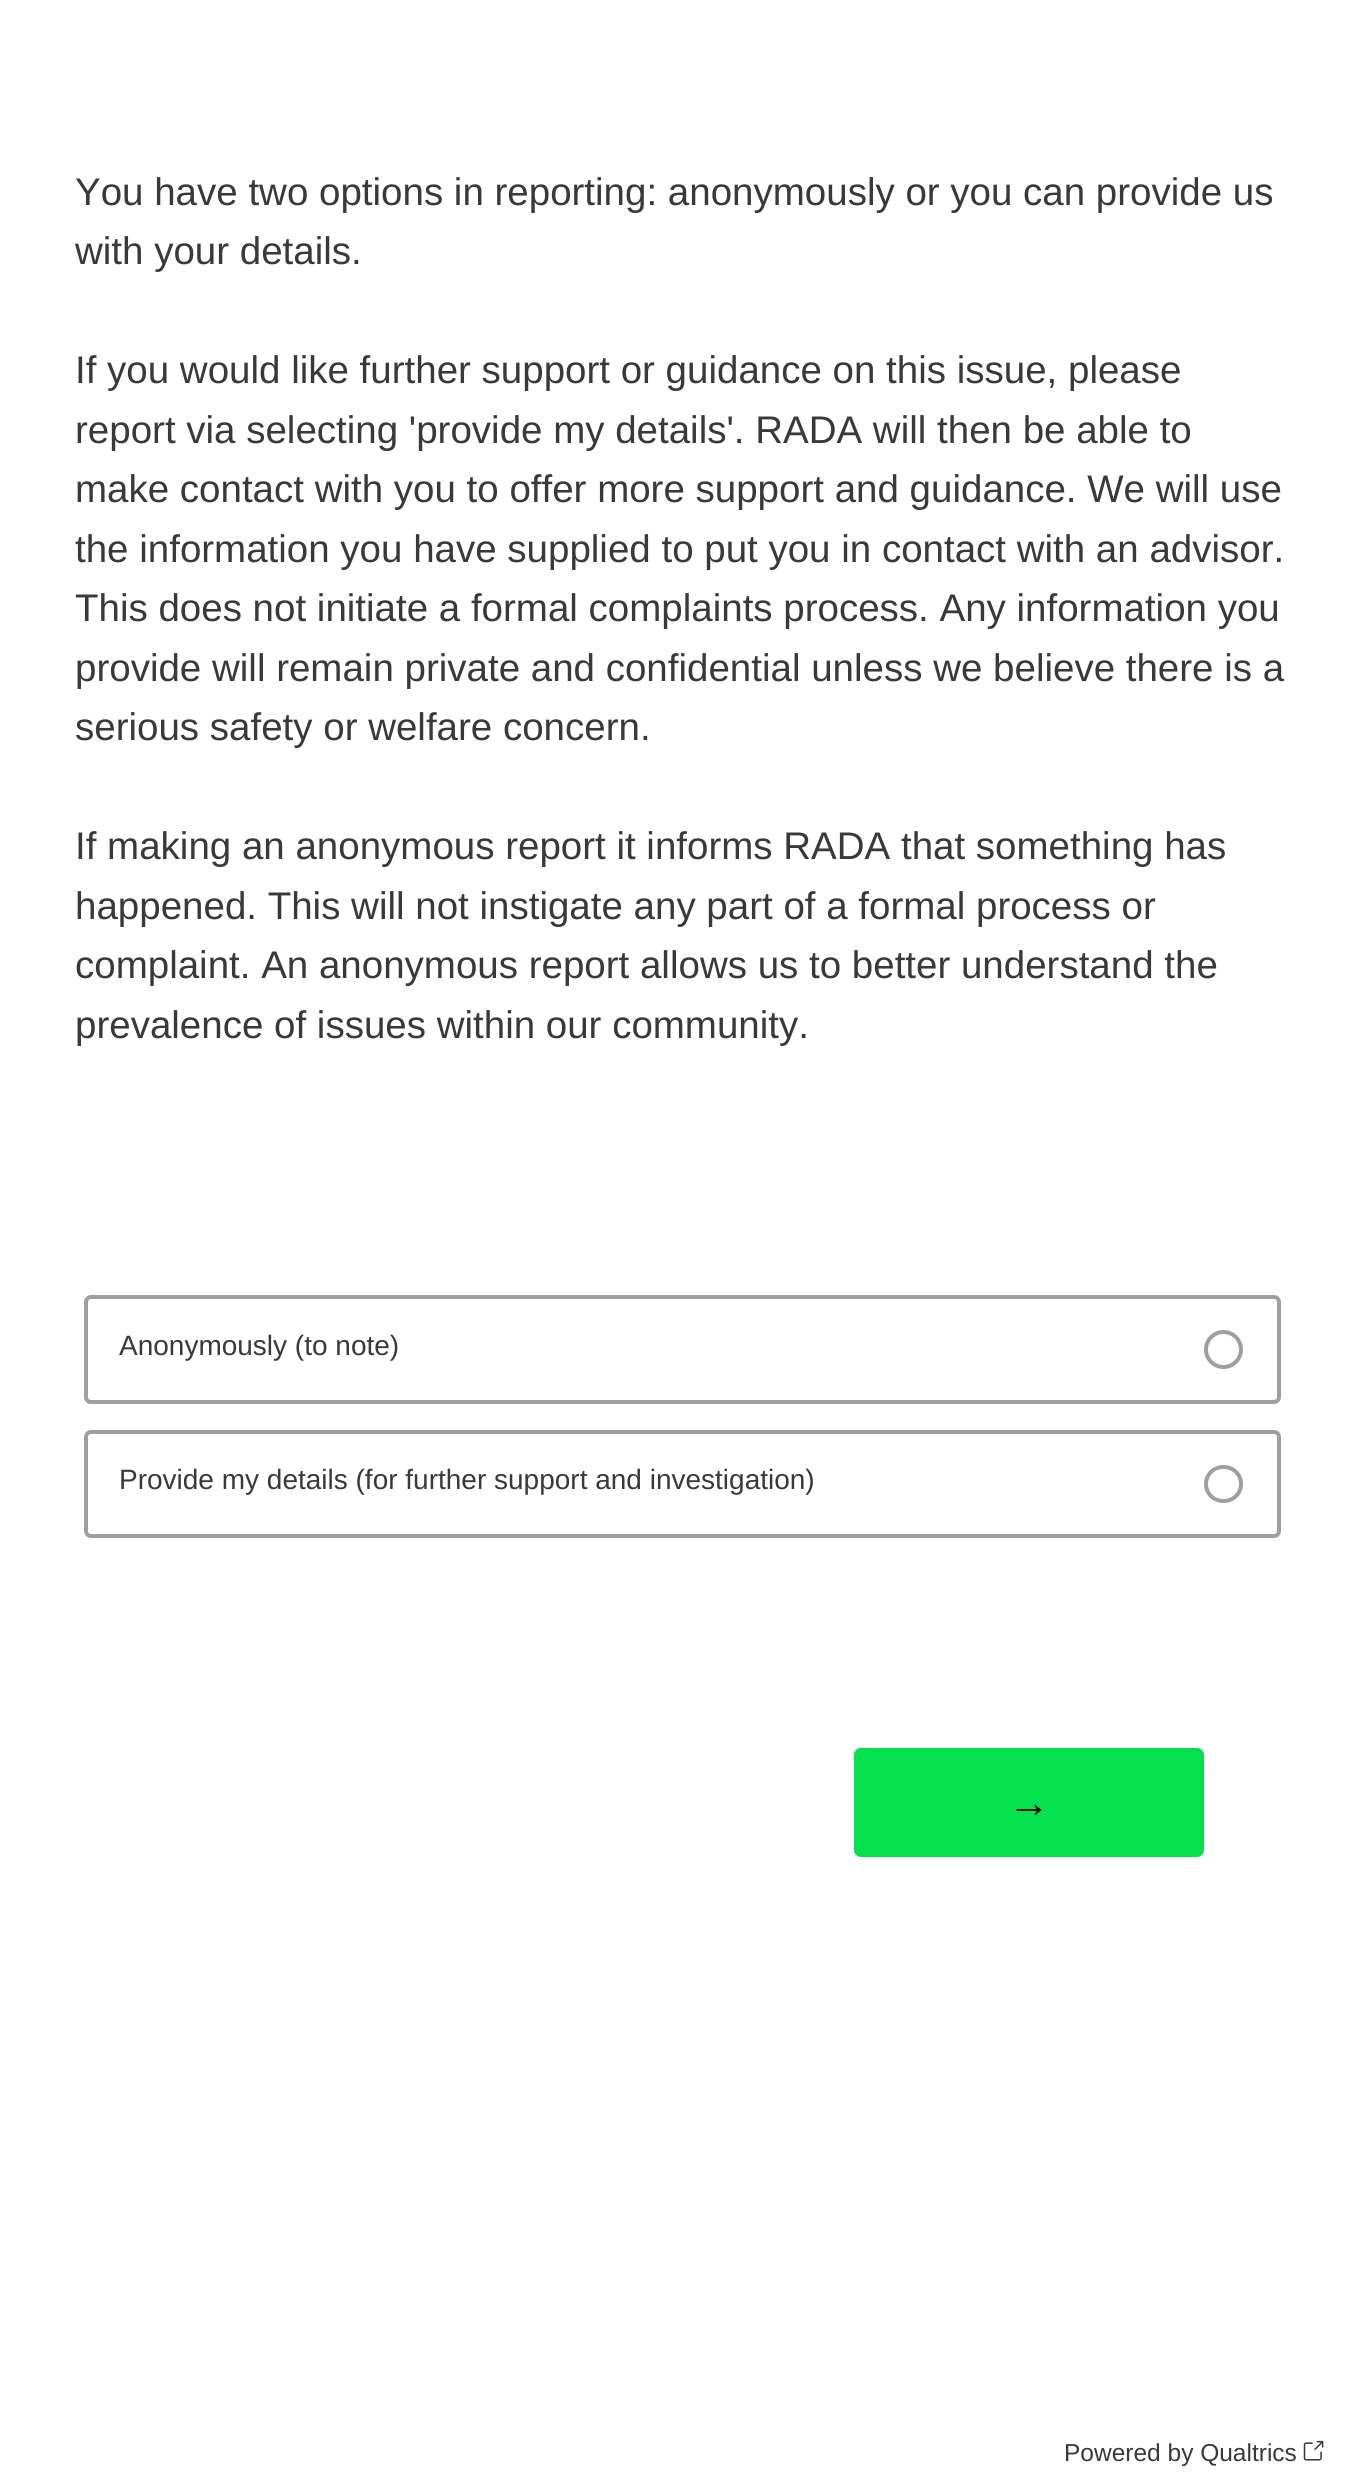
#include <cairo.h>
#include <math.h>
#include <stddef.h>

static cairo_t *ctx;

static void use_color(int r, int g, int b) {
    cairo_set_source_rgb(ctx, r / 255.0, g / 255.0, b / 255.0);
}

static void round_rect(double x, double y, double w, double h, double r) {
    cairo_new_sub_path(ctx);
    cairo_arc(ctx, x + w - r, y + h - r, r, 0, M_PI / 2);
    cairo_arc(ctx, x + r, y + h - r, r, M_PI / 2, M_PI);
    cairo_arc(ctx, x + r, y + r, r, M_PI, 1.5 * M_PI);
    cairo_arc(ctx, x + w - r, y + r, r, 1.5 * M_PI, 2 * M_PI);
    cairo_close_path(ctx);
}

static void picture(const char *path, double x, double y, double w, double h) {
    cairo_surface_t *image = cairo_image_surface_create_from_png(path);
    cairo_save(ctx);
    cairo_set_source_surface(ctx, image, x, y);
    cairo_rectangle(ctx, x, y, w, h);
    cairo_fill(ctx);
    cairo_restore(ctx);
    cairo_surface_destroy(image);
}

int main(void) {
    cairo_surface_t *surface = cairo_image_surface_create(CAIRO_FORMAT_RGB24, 1364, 2477);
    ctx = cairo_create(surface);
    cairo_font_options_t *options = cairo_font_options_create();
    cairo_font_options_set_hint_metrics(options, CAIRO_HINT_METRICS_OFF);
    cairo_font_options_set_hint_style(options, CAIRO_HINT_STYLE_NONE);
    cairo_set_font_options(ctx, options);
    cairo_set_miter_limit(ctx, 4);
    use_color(255, 255, 255);
    cairo_paint(ctx);
    cairo_select_font_face(ctx, "Liberation Sans", CAIRO_FONT_SLANT_NORMAL, CAIRO_FONT_WEIGHT_NORMAL);
    cairo_set_font_size(ctx, 38.5);
    use_color(57, 57, 57);
    cairo_move_to(ctx, 75, 205);
    cairo_show_text(ctx, "You have two options in reporting: anonymously or you can provide us");
    cairo_move_to(ctx, 75, 264);
    cairo_show_text(ctx, "with your details.");
    cairo_move_to(ctx, 75, 383);
    cairo_show_text(ctx, "If you would like further support or guidance on this issue, please");
    cairo_move_to(ctx, 75, 443);
    cairo_show_text(ctx, "report via selecting 'provide my details'. RADA will then be able to");
    cairo_move_to(ctx, 75, 502);
    cairo_show_text(ctx, "make contact with you to offer more support and guidance. We will use");
    cairo_move_to(ctx, 75, 562);
    cairo_show_text(ctx, "the information you have supplied to put you in contact with an advisor.");
    cairo_move_to(ctx, 75, 621);
    cairo_show_text(ctx, "This does not initiate a formal complaints process. Any information you");
    cairo_move_to(ctx, 75, 681);
    cairo_show_text(ctx, "provide will remain private and confidential unless we believe there is a");
    cairo_move_to(ctx, 75, 740);
    cairo_show_text(ctx, "serious safety or welfare concern.");
    cairo_move_to(ctx, 75, 859);
    cairo_show_text(ctx, "If making an anonymous report it informs RADA that something has");
    cairo_move_to(ctx, 75, 919);
    cairo_show_text(ctx, "happened. This will not instigate any part of a formal process or");
    cairo_move_to(ctx, 75, 978);
    cairo_show_text(ctx, "complaint. An anonymous report allows us to better understand the");
    cairo_move_to(ctx, 75, 1038);
    cairo_show_text(ctx, "prevalence of issues within our community.");
    cairo_new_path(ctx);
    cairo_arc(ctx, 1223.5, 1349.5, 17.5, 0, 2 * M_PI);
    use_color(159, 159, 159);
    cairo_set_line_width(ctx, 4);
    cairo_stroke(ctx);
    round_rect(86, 1297, 1193, 105, 5);
    cairo_stroke(ctx);
    cairo_set_font_size(ctx, 28);
    use_color(57, 57, 57);
    cairo_move_to(ctx, 119, 1355);
    cairo_show_text(ctx, "Anonymously (to note)");
    round_rect(1206, 1467, 35, 34, 17);
    use_color(159, 159, 159);
    cairo_stroke(ctx);
    round_rect(86, 1432, 1193, 104, 5);
    cairo_stroke(ctx);
    use_color(57, 57, 57);
    cairo_move_to(ctx, 119, 1489);
    cairo_show_text(ctx, "Provide my details (for further support and investigation)");
    use_color(5, 224, 79);
    round_rect(854, 1748, 350, 109, 7);
    cairo_fill(ctx);
    cairo_set_font_size(ctx, 42);
    use_color(0, 0, 0);
    cairo_move_to(ctx, 1008, 1817);
    cairo_show_text(ctx, "→");
    cairo_set_font_size(ctx, 24.5);
    use_color(57, 57, 57);
    cairo_move_to(ctx, 1064, 2461);
    cairo_show_text(ctx, "Powered by Qualtrics");
    picture("img1.png", 1303, 2440, 21, 21);
    cairo_surface_write_to_png(surface, "result.png");
    cairo_font_options_destroy(options);
    cairo_destroy(ctx);
    cairo_surface_destroy(surface);
    return 0;
}
